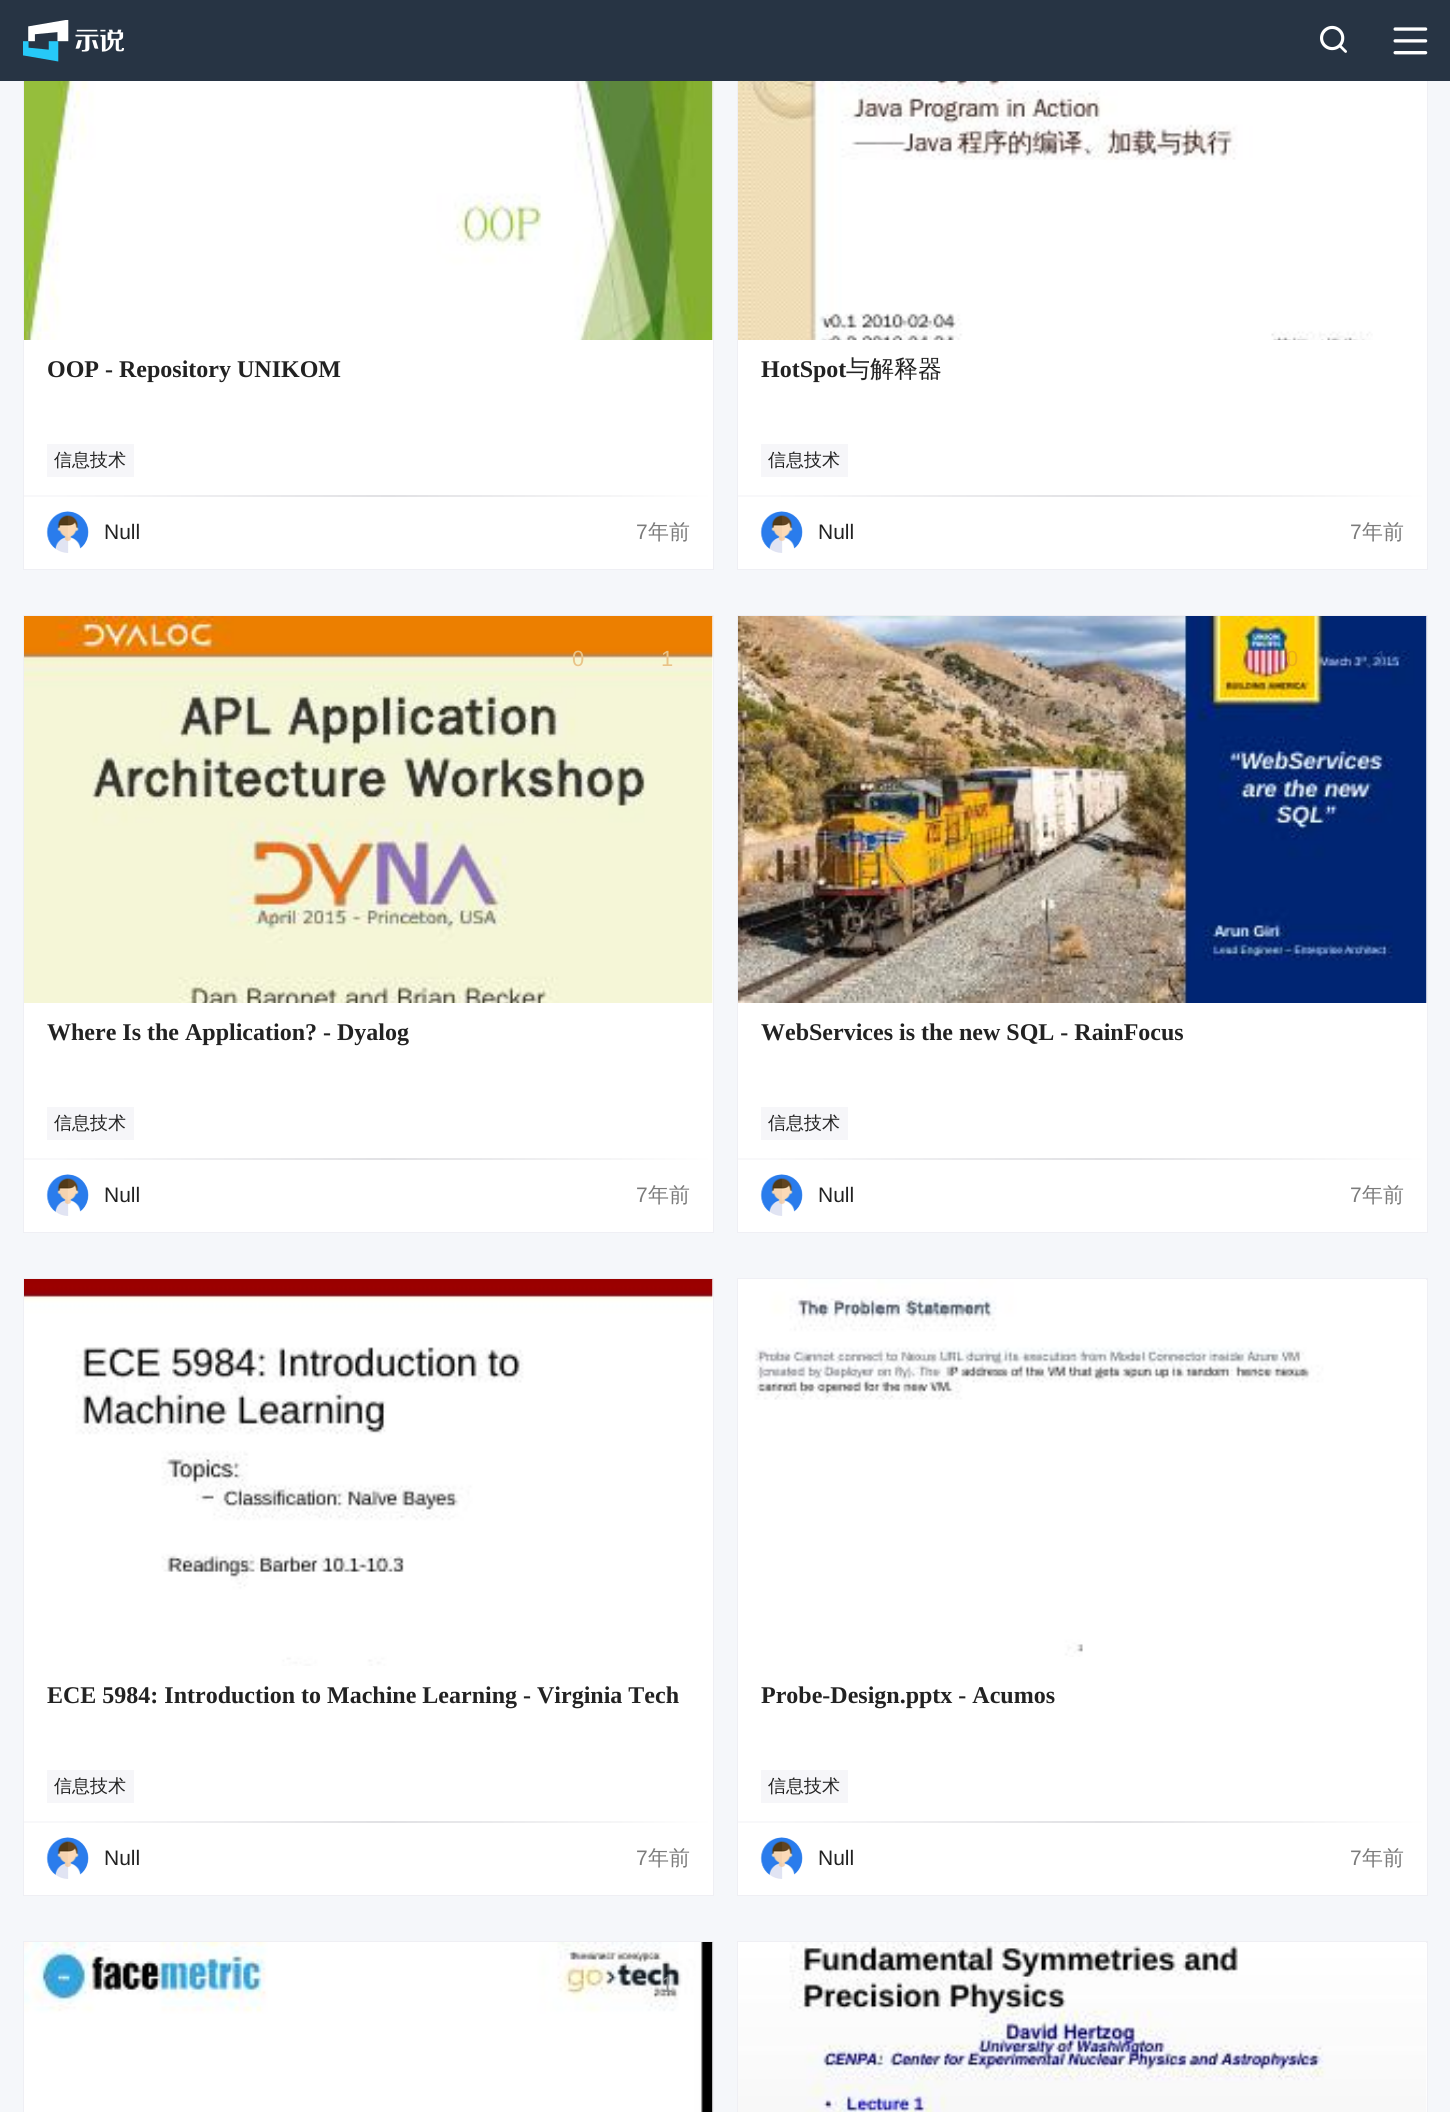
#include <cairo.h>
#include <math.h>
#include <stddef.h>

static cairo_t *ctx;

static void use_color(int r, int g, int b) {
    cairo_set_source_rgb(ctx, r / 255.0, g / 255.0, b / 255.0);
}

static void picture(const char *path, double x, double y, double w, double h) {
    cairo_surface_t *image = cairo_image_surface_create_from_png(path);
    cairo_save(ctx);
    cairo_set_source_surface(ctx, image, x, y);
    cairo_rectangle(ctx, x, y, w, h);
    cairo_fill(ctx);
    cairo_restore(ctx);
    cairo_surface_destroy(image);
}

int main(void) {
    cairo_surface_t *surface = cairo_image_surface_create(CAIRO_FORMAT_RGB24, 1450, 2112);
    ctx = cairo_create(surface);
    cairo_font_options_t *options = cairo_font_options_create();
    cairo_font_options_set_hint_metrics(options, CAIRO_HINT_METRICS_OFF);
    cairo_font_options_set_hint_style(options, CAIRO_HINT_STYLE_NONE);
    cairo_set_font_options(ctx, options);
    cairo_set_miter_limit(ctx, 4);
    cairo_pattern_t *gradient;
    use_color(245, 247, 250);
    cairo_paint(ctx);
    cairo_rectangle(ctx, 24, -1, 689, 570);
    use_color(239, 239, 244);
    cairo_stroke(ctx);
    cairo_rectangle(ctx, 738, -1, 689, 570);
    cairo_stroke(ctx);
    use_color(39, 52, 68);
    cairo_rectangle(ctx, 0, 0, 1450, 81);
    cairo_fill(ctx);
    picture("img1.png", 23, 20, 101, 42);
    picture("img2.png", 1320, 25, 27, 28);
    picture("img3.png", 1393, 27, 35, 28);
    use_color(255, 255, 255);
    cairo_rectangle(ctx, 24, 81, 689, 414);
    cairo_fill(ctx);
    picture("img4.png", 24, 81, 689, 259);
    cairo_select_font_face(ctx, "Liberation Serif", CAIRO_FONT_SLANT_NORMAL, CAIRO_FONT_WEIGHT_BOLD);
    cairo_set_font_size(ctx, 24);
    use_color(34, 34, 34);
    cairo_move_to(ctx, 47, 377);
    cairo_show_text(ctx, "OOP - Repository UNIKOM");
    use_color(246, 246, 249);
    cairo_rectangle(ctx, 47, 444, 87, 33);
    cairo_fill(ctx);
    cairo_select_font_face(ctx, "WenQuanYi Zen Hei Medium", CAIRO_FONT_SLANT_NORMAL, CAIRO_FONT_WEIGHT_NORMAL);
    cairo_set_font_size(ctx, 18);
    use_color(34, 34, 34);
    cairo_move_to(ctx, 54, 466);
    cairo_show_text(ctx, "信息技术");
    gradient = cairo_pattern_create_linear(90, 632, 647, 360);
    cairo_pattern_add_color_stop_rgba(gradient, 0.05, 0.973, 0.973, 0.98, 1);
    cairo_pattern_add_color_stop_rgba(gradient, 0.53, 0.882, 0.882, 0.894, 1);
    cairo_pattern_add_color_stop_rgba(gradient, 1, 1, 1, 1, 1);
    cairo_set_source(ctx, gradient);
    cairo_pattern_destroy(gradient);
    cairo_rectangle(ctx, 24, 495, 689, 2);
    cairo_fill(ctx);
    use_color(255, 255, 255);
    cairo_rectangle(ctx, 24, 497, 689, 72);
    cairo_fill(ctx);
    picture("img5.png", 46, 511, 43, 42);
    cairo_select_font_face(ctx, "Liberation Sans", CAIRO_FONT_SLANT_NORMAL, CAIRO_FONT_WEIGHT_NORMAL);
    cairo_set_font_size(ctx, 21);
    use_color(34, 34, 34);
    cairo_move_to(ctx, 104, 539);
    cairo_show_text(ctx, "Null");
    use_color(123, 123, 123);
    cairo_move_to(ctx, 636, 539);
    cairo_show_text(ctx, "7");
    cairo_select_font_face(ctx, "WenQuanYi Zen Hei Medium", CAIRO_FONT_SLANT_NORMAL, CAIRO_FONT_WEIGHT_NORMAL);
    cairo_move_to(ctx, 648, 539);
    cairo_show_text(ctx, "年前");
    use_color(255, 255, 255);
    cairo_rectangle(ctx, 738, 81, 689, 414);
    cairo_fill(ctx);
    picture("img6.png", 738, 81, 635, 259);
    cairo_select_font_face(ctx, "Liberation Serif", CAIRO_FONT_SLANT_NORMAL, CAIRO_FONT_WEIGHT_BOLD);
    cairo_set_font_size(ctx, 24);
    use_color(34, 34, 34);
    cairo_move_to(ctx, 761, 377);
    cairo_show_text(ctx, "HotSpot");
    cairo_select_font_face(ctx, "WenQuanYi Zen Hei Medium", CAIRO_FONT_SLANT_NORMAL, CAIRO_FONT_WEIGHT_NORMAL);
    cairo_move_to(ctx, 846, 377);
    cairo_show_text(ctx, "与解释器");
    use_color(246, 246, 249);
    cairo_rectangle(ctx, 761, 444, 87, 33);
    cairo_fill(ctx);
    cairo_set_font_size(ctx, 18);
    use_color(34, 34, 34);
    cairo_move_to(ctx, 768, 466);
    cairo_show_text(ctx, "信息技术");
    gradient = cairo_pattern_create_linear(804, 632, 1361, 360);
    cairo_pattern_add_color_stop_rgba(gradient, 0.05, 0.973, 0.973, 0.98, 1);
    cairo_pattern_add_color_stop_rgba(gradient, 0.53, 0.882, 0.882, 0.894, 1);
    cairo_pattern_add_color_stop_rgba(gradient, 1, 1, 1, 1, 1);
    cairo_set_source(ctx, gradient);
    cairo_pattern_destroy(gradient);
    cairo_rectangle(ctx, 738, 495, 689, 2);
    cairo_fill(ctx);
    use_color(255, 255, 255);
    cairo_rectangle(ctx, 738, 497, 689, 72);
    cairo_fill(ctx);
    picture("img7.png", 760, 511, 43, 42);
    cairo_select_font_face(ctx, "Liberation Sans", CAIRO_FONT_SLANT_NORMAL, CAIRO_FONT_WEIGHT_NORMAL);
    cairo_set_font_size(ctx, 21);
    use_color(34, 34, 34);
    cairo_move_to(ctx, 818, 539);
    cairo_show_text(ctx, "Null");
    use_color(123, 123, 123);
    cairo_move_to(ctx, 1350, 539);
    cairo_show_text(ctx, "7");
    cairo_select_font_face(ctx, "WenQuanYi Zen Hei Medium", CAIRO_FONT_SLANT_NORMAL, CAIRO_FONT_WEIGHT_NORMAL);
    cairo_move_to(ctx, 1362, 539);
    cairo_show_text(ctx, "年前");
    cairo_rectangle(ctx, 24, 616, 689, 616);
    use_color(239, 239, 244);
    cairo_stroke(ctx);
    use_color(255, 255, 255);
    cairo_rectangle(ctx, 24, 617, 689, 541);
    cairo_fill(ctx);
    picture("img8.png", 24, 616, 689, 387);
    cairo_select_font_face(ctx, "Liberation Sans", CAIRO_FONT_SLANT_NORMAL, CAIRO_FONT_WEIGHT_NORMAL);
    cairo_set_font_size(ctx, 22);
    use_color(233, 195, 136);
    cairo_move_to(ctx, 572, 666);
    cairo_show_text(ctx, "0");
    cairo_move_to(ctx, 661, 666);
    cairo_show_text(ctx, "1");
    cairo_select_font_face(ctx, "Liberation Serif", CAIRO_FONT_SLANT_NORMAL, CAIRO_FONT_WEIGHT_BOLD);
    cairo_set_font_size(ctx, 24);
    use_color(34, 34, 34);
    cairo_move_to(ctx, 47, 1040);
    cairo_show_text(ctx, "Where Is the Application? - Dyalog");
    use_color(246, 246, 249);
    cairo_rectangle(ctx, 47, 1107, 87, 33);
    cairo_fill(ctx);
    cairo_select_font_face(ctx, "WenQuanYi Zen Hei Medium", CAIRO_FONT_SLANT_NORMAL, CAIRO_FONT_WEIGHT_NORMAL);
    cairo_set_font_size(ctx, 18);
    use_color(34, 34, 34);
    cairo_move_to(ctx, 54, 1129);
    cairo_show_text(ctx, "信息技术");
    gradient = cairo_pattern_create_linear(90, 1295, 647, 1023);
    cairo_pattern_add_color_stop_rgba(gradient, 0.05, 0.973, 0.973, 0.98, 1);
    cairo_pattern_add_color_stop_rgba(gradient, 0.53, 0.882, 0.882, 0.894, 1);
    cairo_pattern_add_color_stop_rgba(gradient, 1, 1, 1, 1, 1);
    cairo_set_source(ctx, gradient);
    cairo_pattern_destroy(gradient);
    cairo_rectangle(ctx, 24, 1158, 689, 2);
    cairo_fill(ctx);
    use_color(255, 255, 255);
    cairo_rectangle(ctx, 24, 1160, 689, 72);
    cairo_fill(ctx);
    picture("img5.png", 46, 1174, 43, 42);
    cairo_select_font_face(ctx, "Liberation Sans", CAIRO_FONT_SLANT_NORMAL, CAIRO_FONT_WEIGHT_NORMAL);
    cairo_set_font_size(ctx, 21);
    use_color(34, 34, 34);
    cairo_move_to(ctx, 104, 1202);
    cairo_show_text(ctx, "Null");
    use_color(123, 123, 123);
    cairo_move_to(ctx, 636, 1202);
    cairo_show_text(ctx, "7");
    cairo_select_font_face(ctx, "WenQuanYi Zen Hei Medium", CAIRO_FONT_SLANT_NORMAL, CAIRO_FONT_WEIGHT_NORMAL);
    cairo_move_to(ctx, 648, 1202);
    cairo_show_text(ctx, "年前");
    cairo_rectangle(ctx, 738, 616, 689, 616);
    use_color(239, 239, 244);
    cairo_stroke(ctx);
    use_color(255, 255, 255);
    cairo_rectangle(ctx, 738, 617, 689, 541);
    cairo_fill(ctx);
    picture("img9.png", 738, 616, 689, 387);
    cairo_select_font_face(ctx, "Liberation Sans", CAIRO_FONT_SLANT_NORMAL, CAIRO_FONT_WEIGHT_NORMAL);
    cairo_set_font_size(ctx, 22);
    use_color(235, 174, 21);
    cairo_move_to(ctx, 1286, 666);
    cairo_show_text(ctx, "0");
    use_color(37, 69, 138);
    cairo_move_to(ctx, 1375, 666);
    cairo_show_text(ctx, "1");
    cairo_select_font_face(ctx, "Liberation Serif", CAIRO_FONT_SLANT_NORMAL, CAIRO_FONT_WEIGHT_BOLD);
    cairo_set_font_size(ctx, 24);
    use_color(34, 34, 34);
    cairo_move_to(ctx, 761, 1040);
    cairo_show_text(ctx, "WebServices is the new SQL - RainFocus");
    use_color(246, 246, 249);
    cairo_rectangle(ctx, 761, 1107, 87, 33);
    cairo_fill(ctx);
    cairo_select_font_face(ctx, "WenQuanYi Zen Hei Medium", CAIRO_FONT_SLANT_NORMAL, CAIRO_FONT_WEIGHT_NORMAL);
    cairo_set_font_size(ctx, 18);
    use_color(34, 34, 34);
    cairo_move_to(ctx, 768, 1129);
    cairo_show_text(ctx, "信息技术");
    gradient = cairo_pattern_create_linear(804, 1295, 1361, 1023);
    cairo_pattern_add_color_stop_rgba(gradient, 0.05, 0.973, 0.973, 0.98, 1);
    cairo_pattern_add_color_stop_rgba(gradient, 0.53, 0.882, 0.882, 0.894, 1);
    cairo_pattern_add_color_stop_rgba(gradient, 1, 1, 1, 1, 1);
    cairo_set_source(ctx, gradient);
    cairo_pattern_destroy(gradient);
    cairo_rectangle(ctx, 738, 1158, 689, 2);
    cairo_fill(ctx);
    use_color(255, 255, 255);
    cairo_rectangle(ctx, 738, 1160, 689, 72);
    cairo_fill(ctx);
    picture("img7.png", 760, 1174, 43, 42);
    cairo_select_font_face(ctx, "Liberation Sans", CAIRO_FONT_SLANT_NORMAL, CAIRO_FONT_WEIGHT_NORMAL);
    cairo_set_font_size(ctx, 21);
    use_color(34, 34, 34);
    cairo_move_to(ctx, 818, 1202);
    cairo_show_text(ctx, "Null");
    use_color(123, 123, 123);
    cairo_move_to(ctx, 1350, 1202);
    cairo_show_text(ctx, "7");
    cairo_select_font_face(ctx, "WenQuanYi Zen Hei Medium", CAIRO_FONT_SLANT_NORMAL, CAIRO_FONT_WEIGHT_NORMAL);
    cairo_move_to(ctx, 1362, 1202);
    cairo_show_text(ctx, "年前");
    cairo_rectangle(ctx, 24, 1279, 689, 616);
    use_color(239, 239, 244);
    cairo_stroke(ctx);
    use_color(255, 255, 255);
    cairo_rectangle(ctx, 24, 1280, 689, 541);
    cairo_fill(ctx);
    picture("img10.png", 24, 1279, 689, 387);
    cairo_select_font_face(ctx, "Liberation Serif", CAIRO_FONT_SLANT_NORMAL, CAIRO_FONT_WEIGHT_BOLD);
    cairo_set_font_size(ctx, 24);
    use_color(34, 34, 34);
    cairo_move_to(ctx, 47, 1703);
    cairo_show_text(ctx, "ECE 5984: Introduction to Machine Learning - Virginia Tech");
    use_color(246, 246, 249);
    cairo_rectangle(ctx, 47, 1770, 87, 33);
    cairo_fill(ctx);
    cairo_select_font_face(ctx, "WenQuanYi Zen Hei Medium", CAIRO_FONT_SLANT_NORMAL, CAIRO_FONT_WEIGHT_NORMAL);
    cairo_set_font_size(ctx, 18);
    use_color(34, 34, 34);
    cairo_move_to(ctx, 54, 1792);
    cairo_show_text(ctx, "信息技术");
    gradient = cairo_pattern_create_linear(90, 1958, 647, 1686);
    cairo_pattern_add_color_stop_rgba(gradient, 0.05, 0.973, 0.973, 0.98, 1);
    cairo_pattern_add_color_stop_rgba(gradient, 0.53, 0.882, 0.882, 0.894, 1);
    cairo_pattern_add_color_stop_rgba(gradient, 1, 1, 1, 1, 1);
    cairo_set_source(ctx, gradient);
    cairo_pattern_destroy(gradient);
    cairo_rectangle(ctx, 24, 1821, 689, 2);
    cairo_fill(ctx);
    use_color(255, 255, 255);
    cairo_rectangle(ctx, 24, 1823, 689, 72);
    cairo_fill(ctx);
    picture("img11.png", 46, 1837, 43, 42);
    cairo_select_font_face(ctx, "Liberation Sans", CAIRO_FONT_SLANT_NORMAL, CAIRO_FONT_WEIGHT_NORMAL);
    cairo_set_font_size(ctx, 21);
    use_color(34, 34, 34);
    cairo_move_to(ctx, 104, 1865);
    cairo_show_text(ctx, "Null");
    use_color(123, 123, 123);
    cairo_move_to(ctx, 636, 1865);
    cairo_show_text(ctx, "7");
    cairo_select_font_face(ctx, "WenQuanYi Zen Hei Medium", CAIRO_FONT_SLANT_NORMAL, CAIRO_FONT_WEIGHT_NORMAL);
    cairo_move_to(ctx, 648, 1865);
    cairo_show_text(ctx, "年前");
    cairo_rectangle(ctx, 738, 1279, 689, 616);
    use_color(239, 239, 244);
    cairo_stroke(ctx);
    use_color(255, 255, 255);
    cairo_rectangle(ctx, 738, 1280, 689, 541);
    cairo_fill(ctx);
    picture("img12.png", 738, 1279, 689, 378);
    cairo_select_font_face(ctx, "Liberation Serif", CAIRO_FONT_SLANT_NORMAL, CAIRO_FONT_WEIGHT_BOLD);
    cairo_set_font_size(ctx, 24);
    use_color(34, 34, 34);
    cairo_move_to(ctx, 761, 1703);
    cairo_show_text(ctx, "Probe-Design.pptx - Acumos");
    use_color(246, 246, 249);
    cairo_rectangle(ctx, 761, 1770, 87, 33);
    cairo_fill(ctx);
    cairo_select_font_face(ctx, "WenQuanYi Zen Hei Medium", CAIRO_FONT_SLANT_NORMAL, CAIRO_FONT_WEIGHT_NORMAL);
    cairo_set_font_size(ctx, 18);
    use_color(34, 34, 34);
    cairo_move_to(ctx, 768, 1792);
    cairo_show_text(ctx, "信息技术");
    gradient = cairo_pattern_create_linear(804, 1958, 1361, 1686);
    cairo_pattern_add_color_stop_rgba(gradient, 0.05, 0.973, 0.973, 0.98, 1);
    cairo_pattern_add_color_stop_rgba(gradient, 0.53, 0.882, 0.882, 0.894, 1);
    cairo_pattern_add_color_stop_rgba(gradient, 1, 1, 1, 1, 1);
    cairo_set_source(ctx, gradient);
    cairo_pattern_destroy(gradient);
    cairo_rectangle(ctx, 738, 1821, 689, 2);
    cairo_fill(ctx);
    use_color(255, 255, 255);
    cairo_rectangle(ctx, 738, 1823, 689, 72);
    cairo_fill(ctx);
    picture("img13.png", 760, 1837, 43, 42);
    cairo_select_font_face(ctx, "Liberation Sans", CAIRO_FONT_SLANT_NORMAL, CAIRO_FONT_WEIGHT_NORMAL);
    cairo_set_font_size(ctx, 21);
    use_color(34, 34, 34);
    cairo_move_to(ctx, 818, 1865);
    cairo_show_text(ctx, "Null");
    use_color(123, 123, 123);
    cairo_move_to(ctx, 1350, 1865);
    cairo_show_text(ctx, "7");
    cairo_select_font_face(ctx, "WenQuanYi Zen Hei Medium", CAIRO_FONT_SLANT_NORMAL, CAIRO_FONT_WEIGHT_NORMAL);
    cairo_move_to(ctx, 1362, 1865);
    cairo_show_text(ctx, "年前");
    cairo_rectangle(ctx, 24, 1942, 689, 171);
    use_color(239, 239, 244);
    cairo_stroke(ctx);
    use_color(255, 255, 255);
    cairo_rectangle(ctx, 712, 1943, 1, 169);
    cairo_fill(ctx);
    picture("img14.png", 24, 1942, 689, 170);
    cairo_select_font_face(ctx, "Liberation Sans", CAIRO_FONT_SLANT_NORMAL, CAIRO_FONT_WEIGHT_NORMAL);
    cairo_set_font_size(ctx, 22);
    use_color(139, 143, 145);
    cairo_move_to(ctx, 661, 1992);
    cairo_show_text(ctx, "1");
    cairo_rectangle(ctx, 738, 1942, 689, 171);
    use_color(239, 239, 244);
    cairo_stroke(ctx);
    use_color(255, 255, 255);
    cairo_rectangle(ctx, 1426, 1943, 1, 169);
    cairo_fill(ctx);
    picture("img15.png", 738, 1942, 689, 170);
    cairo_surface_write_to_png(surface, "result.png");
    cairo_font_options_destroy(options);
    cairo_destroy(ctx);
    cairo_surface_destroy(surface);
    return 0;
}
